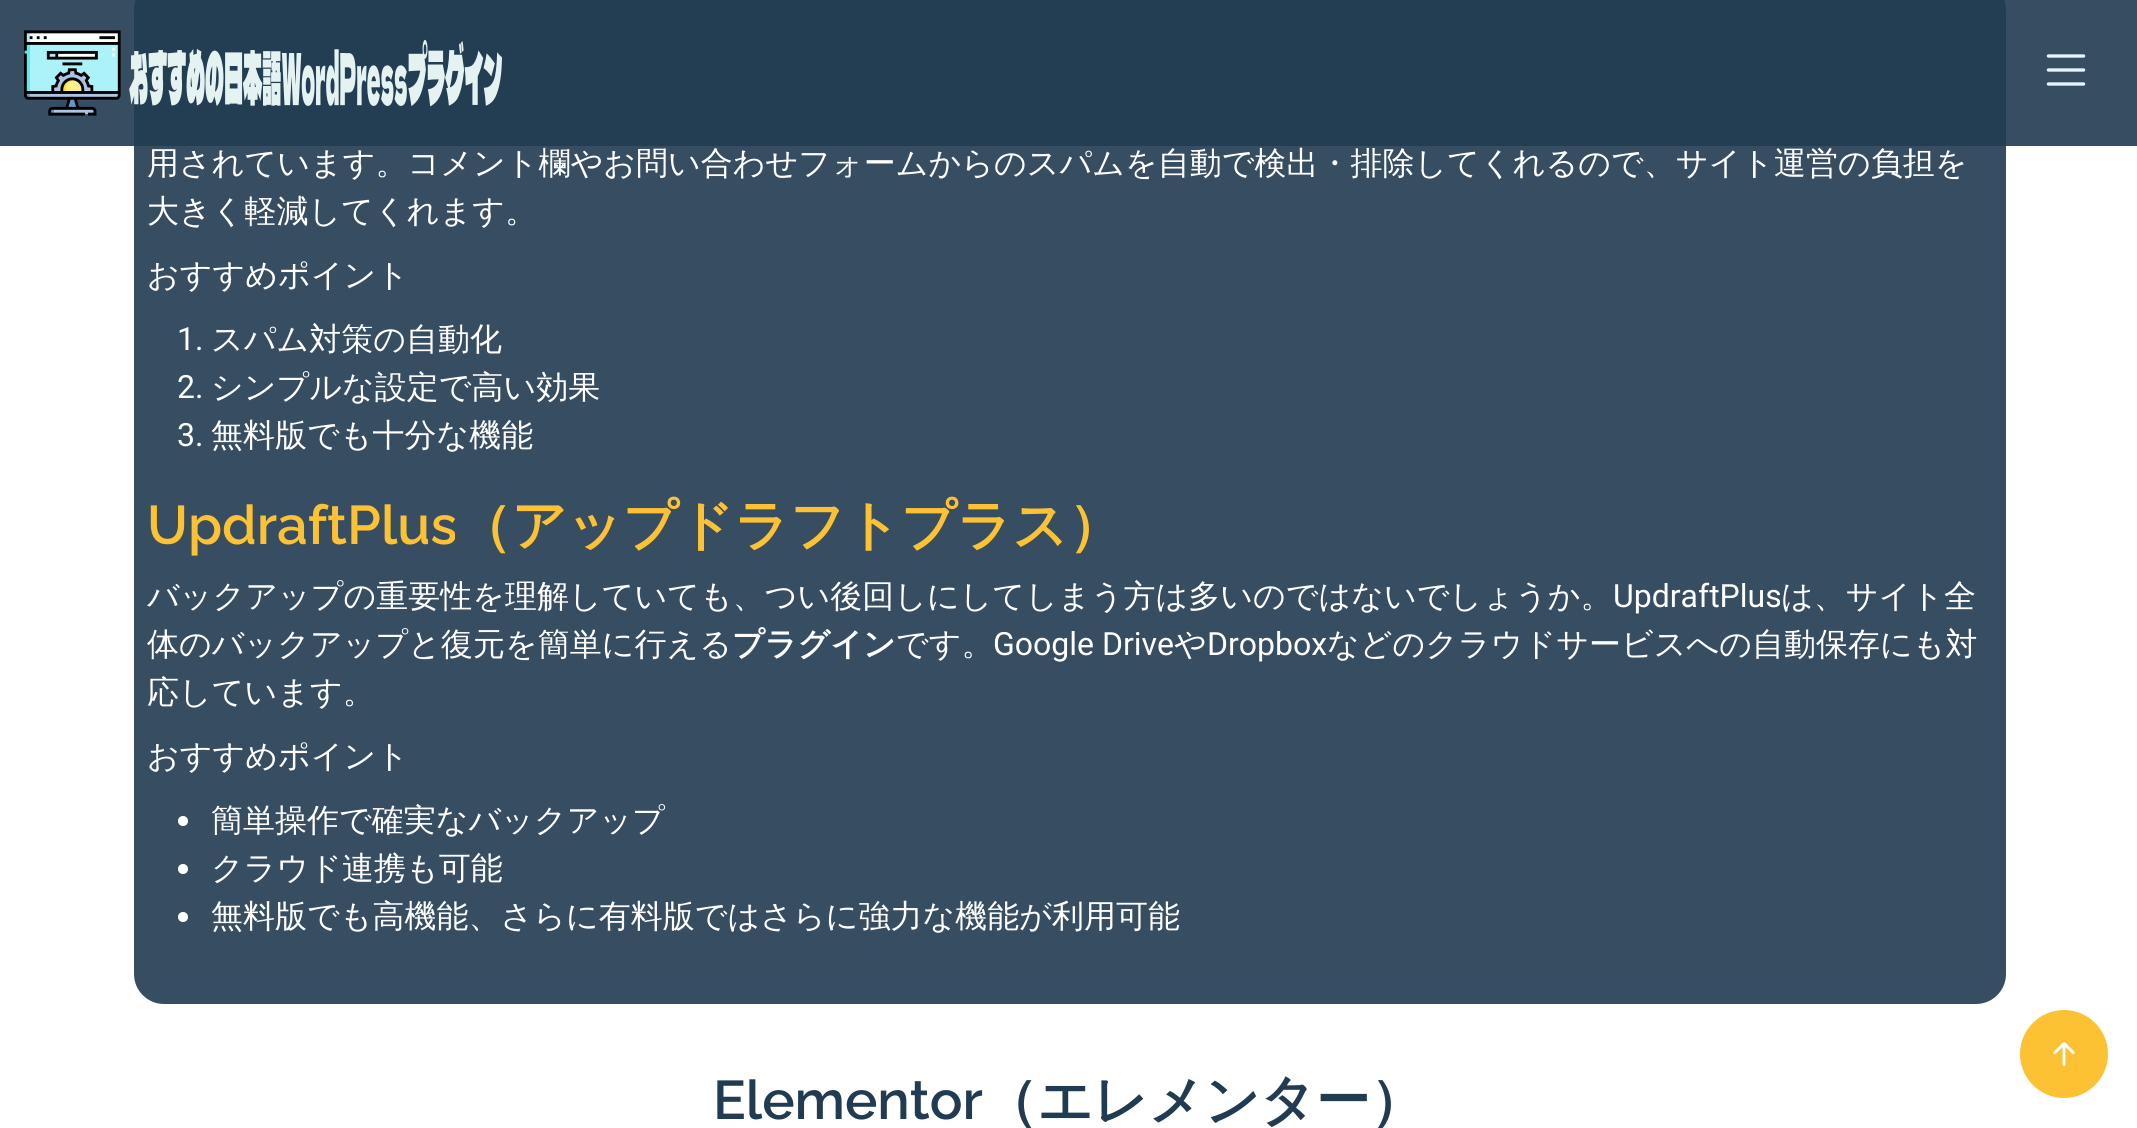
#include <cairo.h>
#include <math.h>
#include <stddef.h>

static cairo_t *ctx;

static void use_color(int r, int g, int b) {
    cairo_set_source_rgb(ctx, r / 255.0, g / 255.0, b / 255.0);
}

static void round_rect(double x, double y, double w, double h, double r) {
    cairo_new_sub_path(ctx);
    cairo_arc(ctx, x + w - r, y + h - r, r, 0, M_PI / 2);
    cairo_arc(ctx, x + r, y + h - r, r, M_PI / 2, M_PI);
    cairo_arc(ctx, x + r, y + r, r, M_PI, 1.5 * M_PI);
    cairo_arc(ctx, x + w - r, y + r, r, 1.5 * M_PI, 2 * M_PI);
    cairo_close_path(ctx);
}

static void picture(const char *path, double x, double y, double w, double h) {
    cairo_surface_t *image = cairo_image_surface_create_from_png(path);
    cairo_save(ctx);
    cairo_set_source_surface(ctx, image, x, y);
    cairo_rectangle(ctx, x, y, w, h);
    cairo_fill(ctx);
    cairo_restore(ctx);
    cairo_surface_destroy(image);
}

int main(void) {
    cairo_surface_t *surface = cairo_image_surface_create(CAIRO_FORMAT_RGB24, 2137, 1128);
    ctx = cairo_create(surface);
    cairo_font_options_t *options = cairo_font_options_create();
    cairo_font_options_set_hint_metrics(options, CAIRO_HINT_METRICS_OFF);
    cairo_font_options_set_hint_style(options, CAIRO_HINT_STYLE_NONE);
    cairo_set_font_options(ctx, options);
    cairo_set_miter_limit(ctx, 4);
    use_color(255, 255, 255);
    cairo_paint(ctx);
    use_color(55, 77, 98);
    round_rect(134, -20, 1872, 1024, 30);
    cairo_fill(ctx);
    cairo_set_source_rgba(ctx, 0.133, 0.231, 0.318, 0.9);
    cairo_rectangle(ctx, 0, 0, 2137, 146);
    cairo_fill(ctx);
    picture("img1.png", 24, 30, 478, 86);
    picture("img2.png", 2046, 54, 40, 32);
    cairo_select_font_face(ctx, "WenQuanYi Zen Hei Medium", CAIRO_FONT_SLANT_NORMAL, CAIRO_FONT_WEIGHT_NORMAL);
    cairo_set_font_size(ctx, 32);
    use_color(255, 255, 255);
    cairo_move_to(ctx, 147, 174);
    cairo_show_text(ctx, "用されています。コメント欄やお問い合わせフォームからのスパムを自動で検出・排除してくれるので、サイト運営の負担を");
    cairo_move_to(ctx, 147, 222);
    cairo_show_text(ctx, "大きく軽減してくれます。");
    cairo_move_to(ctx, 147, 286);
    cairo_show_text(ctx, "おすすめポイント");
    cairo_select_font_face(ctx, "Roboto", CAIRO_FONT_SLANT_NORMAL, CAIRO_FONT_WEIGHT_NORMAL);
    cairo_move_to(ctx, 177, 350);
    cairo_show_text(ctx, "1.");
    cairo_select_font_face(ctx, "WenQuanYi Zen Hei Medium", CAIRO_FONT_SLANT_NORMAL, CAIRO_FONT_WEIGHT_NORMAL);
    cairo_move_to(ctx, 211, 350);
    cairo_show_text(ctx, "スパム対策の自動化");
    cairo_select_font_face(ctx, "Roboto", CAIRO_FONT_SLANT_NORMAL, CAIRO_FONT_WEIGHT_NORMAL);
    cairo_move_to(ctx, 177, 398);
    cairo_show_text(ctx, "2.");
    cairo_select_font_face(ctx, "WenQuanYi Zen Hei Medium", CAIRO_FONT_SLANT_NORMAL, CAIRO_FONT_WEIGHT_NORMAL);
    cairo_move_to(ctx, 211, 398);
    cairo_show_text(ctx, "シンプルな設定で高い効果");
    cairo_select_font_face(ctx, "Roboto", CAIRO_FONT_SLANT_NORMAL, CAIRO_FONT_WEIGHT_NORMAL);
    cairo_move_to(ctx, 177, 446);
    cairo_show_text(ctx, "3.");
    cairo_select_font_face(ctx, "WenQuanYi Zen Hei Medium", CAIRO_FONT_SLANT_NORMAL, CAIRO_FONT_WEIGHT_NORMAL);
    cairo_move_to(ctx, 211, 446);
    cairo_show_text(ctx, "無料版でも十分な機能");
    cairo_select_font_face(ctx, "Raleway SemiBold", CAIRO_FONT_SLANT_NORMAL, CAIRO_FONT_WEIGHT_NORMAL);
    cairo_set_font_size(ctx, 54.4);
    use_color(253, 193, 52);
    cairo_move_to(ctx, 147, 544);
    cairo_show_text(ctx, "UpdraftPlus");
    cairo_select_font_face(ctx, "WenQuanYi Zen Hei", CAIRO_FONT_SLANT_NORMAL, CAIRO_FONT_WEIGHT_BOLD);
    cairo_move_to(ctx, 457, 544);
    cairo_show_text(ctx, "（アップドラフトプラス）");
    cairo_select_font_face(ctx, "WenQuanYi Zen Hei Medium", CAIRO_FONT_SLANT_NORMAL, CAIRO_FONT_WEIGHT_NORMAL);
    cairo_set_font_size(ctx, 32);
    use_color(255, 255, 255);
    cairo_move_to(ctx, 147, 607);
    cairo_show_text(ctx, "バックアップの重要性を理解していても、つい後回しにしてしまう方は多いのではないでしょうか。");
    cairo_select_font_face(ctx, "Roboto", CAIRO_FONT_SLANT_NORMAL, CAIRO_FONT_WEIGHT_NORMAL);
    cairo_move_to(ctx, 1613, 607);
    cairo_show_text(ctx, "UpdraftPlus");
    cairo_select_font_face(ctx, "WenQuanYi Zen Hei Medium", CAIRO_FONT_SLANT_NORMAL, CAIRO_FONT_WEIGHT_NORMAL);
    cairo_move_to(ctx, 1781, 607);
    cairo_show_text(ctx, "は、サイト全");
    cairo_move_to(ctx, 147, 655);
    cairo_show_text(ctx, "体のバックアップと復元を簡単に行える");
    cairo_select_font_face(ctx, "WenQuanYi Zen Hei", CAIRO_FONT_SLANT_NORMAL, CAIRO_FONT_WEIGHT_BOLD);
    cairo_move_to(ctx, 732, 655);
    cairo_show_text(ctx, "プラグイン");
    cairo_select_font_face(ctx, "WenQuanYi Zen Hei Medium", CAIRO_FONT_SLANT_NORMAL, CAIRO_FONT_WEIGHT_NORMAL);
    cairo_move_to(ctx, 896, 655);
    cairo_show_text(ctx, "です。");
    cairo_select_font_face(ctx, "Roboto", CAIRO_FONT_SLANT_NORMAL, CAIRO_FONT_WEIGHT_NORMAL);
    cairo_move_to(ctx, 993, 655);
    cairo_show_text(ctx, "Google Drive");
    cairo_select_font_face(ctx, "WenQuanYi Zen Hei Medium", CAIRO_FONT_SLANT_NORMAL, CAIRO_FONT_WEIGHT_NORMAL);
    cairo_move_to(ctx, 1174, 655);
    cairo_show_text(ctx, "や");
    cairo_select_font_face(ctx, "Roboto", CAIRO_FONT_SLANT_NORMAL, CAIRO_FONT_WEIGHT_NORMAL);
    cairo_move_to(ctx, 1207, 655);
    cairo_show_text(ctx, "Dropbox");
    cairo_select_font_face(ctx, "WenQuanYi Zen Hei Medium", CAIRO_FONT_SLANT_NORMAL, CAIRO_FONT_WEIGHT_NORMAL);
    cairo_move_to(ctx, 1327, 655);
    cairo_show_text(ctx, "などのクラウドサービスへの自動保存にも対");
    cairo_move_to(ctx, 147, 703);
    cairo_show_text(ctx, "応しています。");
    cairo_move_to(ctx, 147, 767);
    cairo_show_text(ctx, "おすすめポイント");
    cairo_new_path(ctx);
    cairo_arc(ctx, 183, 821, 5, 0, 2 * M_PI);
    cairo_fill(ctx);
    cairo_move_to(ctx, 211, 831);
    cairo_show_text(ctx, "簡単操作で確実なバックアップ");
    cairo_new_path(ctx);
    cairo_arc(ctx, 183, 869, 5, 0, 2 * M_PI);
    cairo_fill(ctx);
    cairo_move_to(ctx, 211, 879);
    cairo_show_text(ctx, "クラウド連携も可能");
    cairo_new_path(ctx);
    cairo_arc(ctx, 183, 917, 5, 0, 2 * M_PI);
    cairo_fill(ctx);
    cairo_move_to(ctx, 211, 927);
    cairo_show_text(ctx, "無料版でも高機能、さらに有料版ではさらに強力な機能が利用可能");
    cairo_select_font_face(ctx, "Raleway SemiBold", CAIRO_FONT_SLANT_NORMAL, CAIRO_FONT_WEIGHT_NORMAL);
    cairo_set_font_size(ctx, 54.4);
    use_color(33, 59, 82);
    cairo_move_to(ctx, 713, 1119);
    cairo_show_text(ctx, "Elementor");
    cairo_select_font_face(ctx, "WenQuanYi Zen Hei", CAIRO_FONT_SLANT_NORMAL, CAIRO_FONT_WEIGHT_BOLD);
    cairo_move_to(ctx, 983, 1119);
    cairo_show_text(ctx, "（エレメンター）");
    use_color(253, 193, 52);
    cairo_new_path(ctx);
    cairo_arc(ctx, 2064, 1054, 44, 0, 2 * M_PI);
    cairo_fill(ctx);
    picture("img3.png", 2053, 1042, 22, 24);
    cairo_surface_write_to_png(surface, "result.png");
    cairo_font_options_destroy(options);
    cairo_destroy(ctx);
    cairo_surface_destroy(surface);
    return 0;
}
